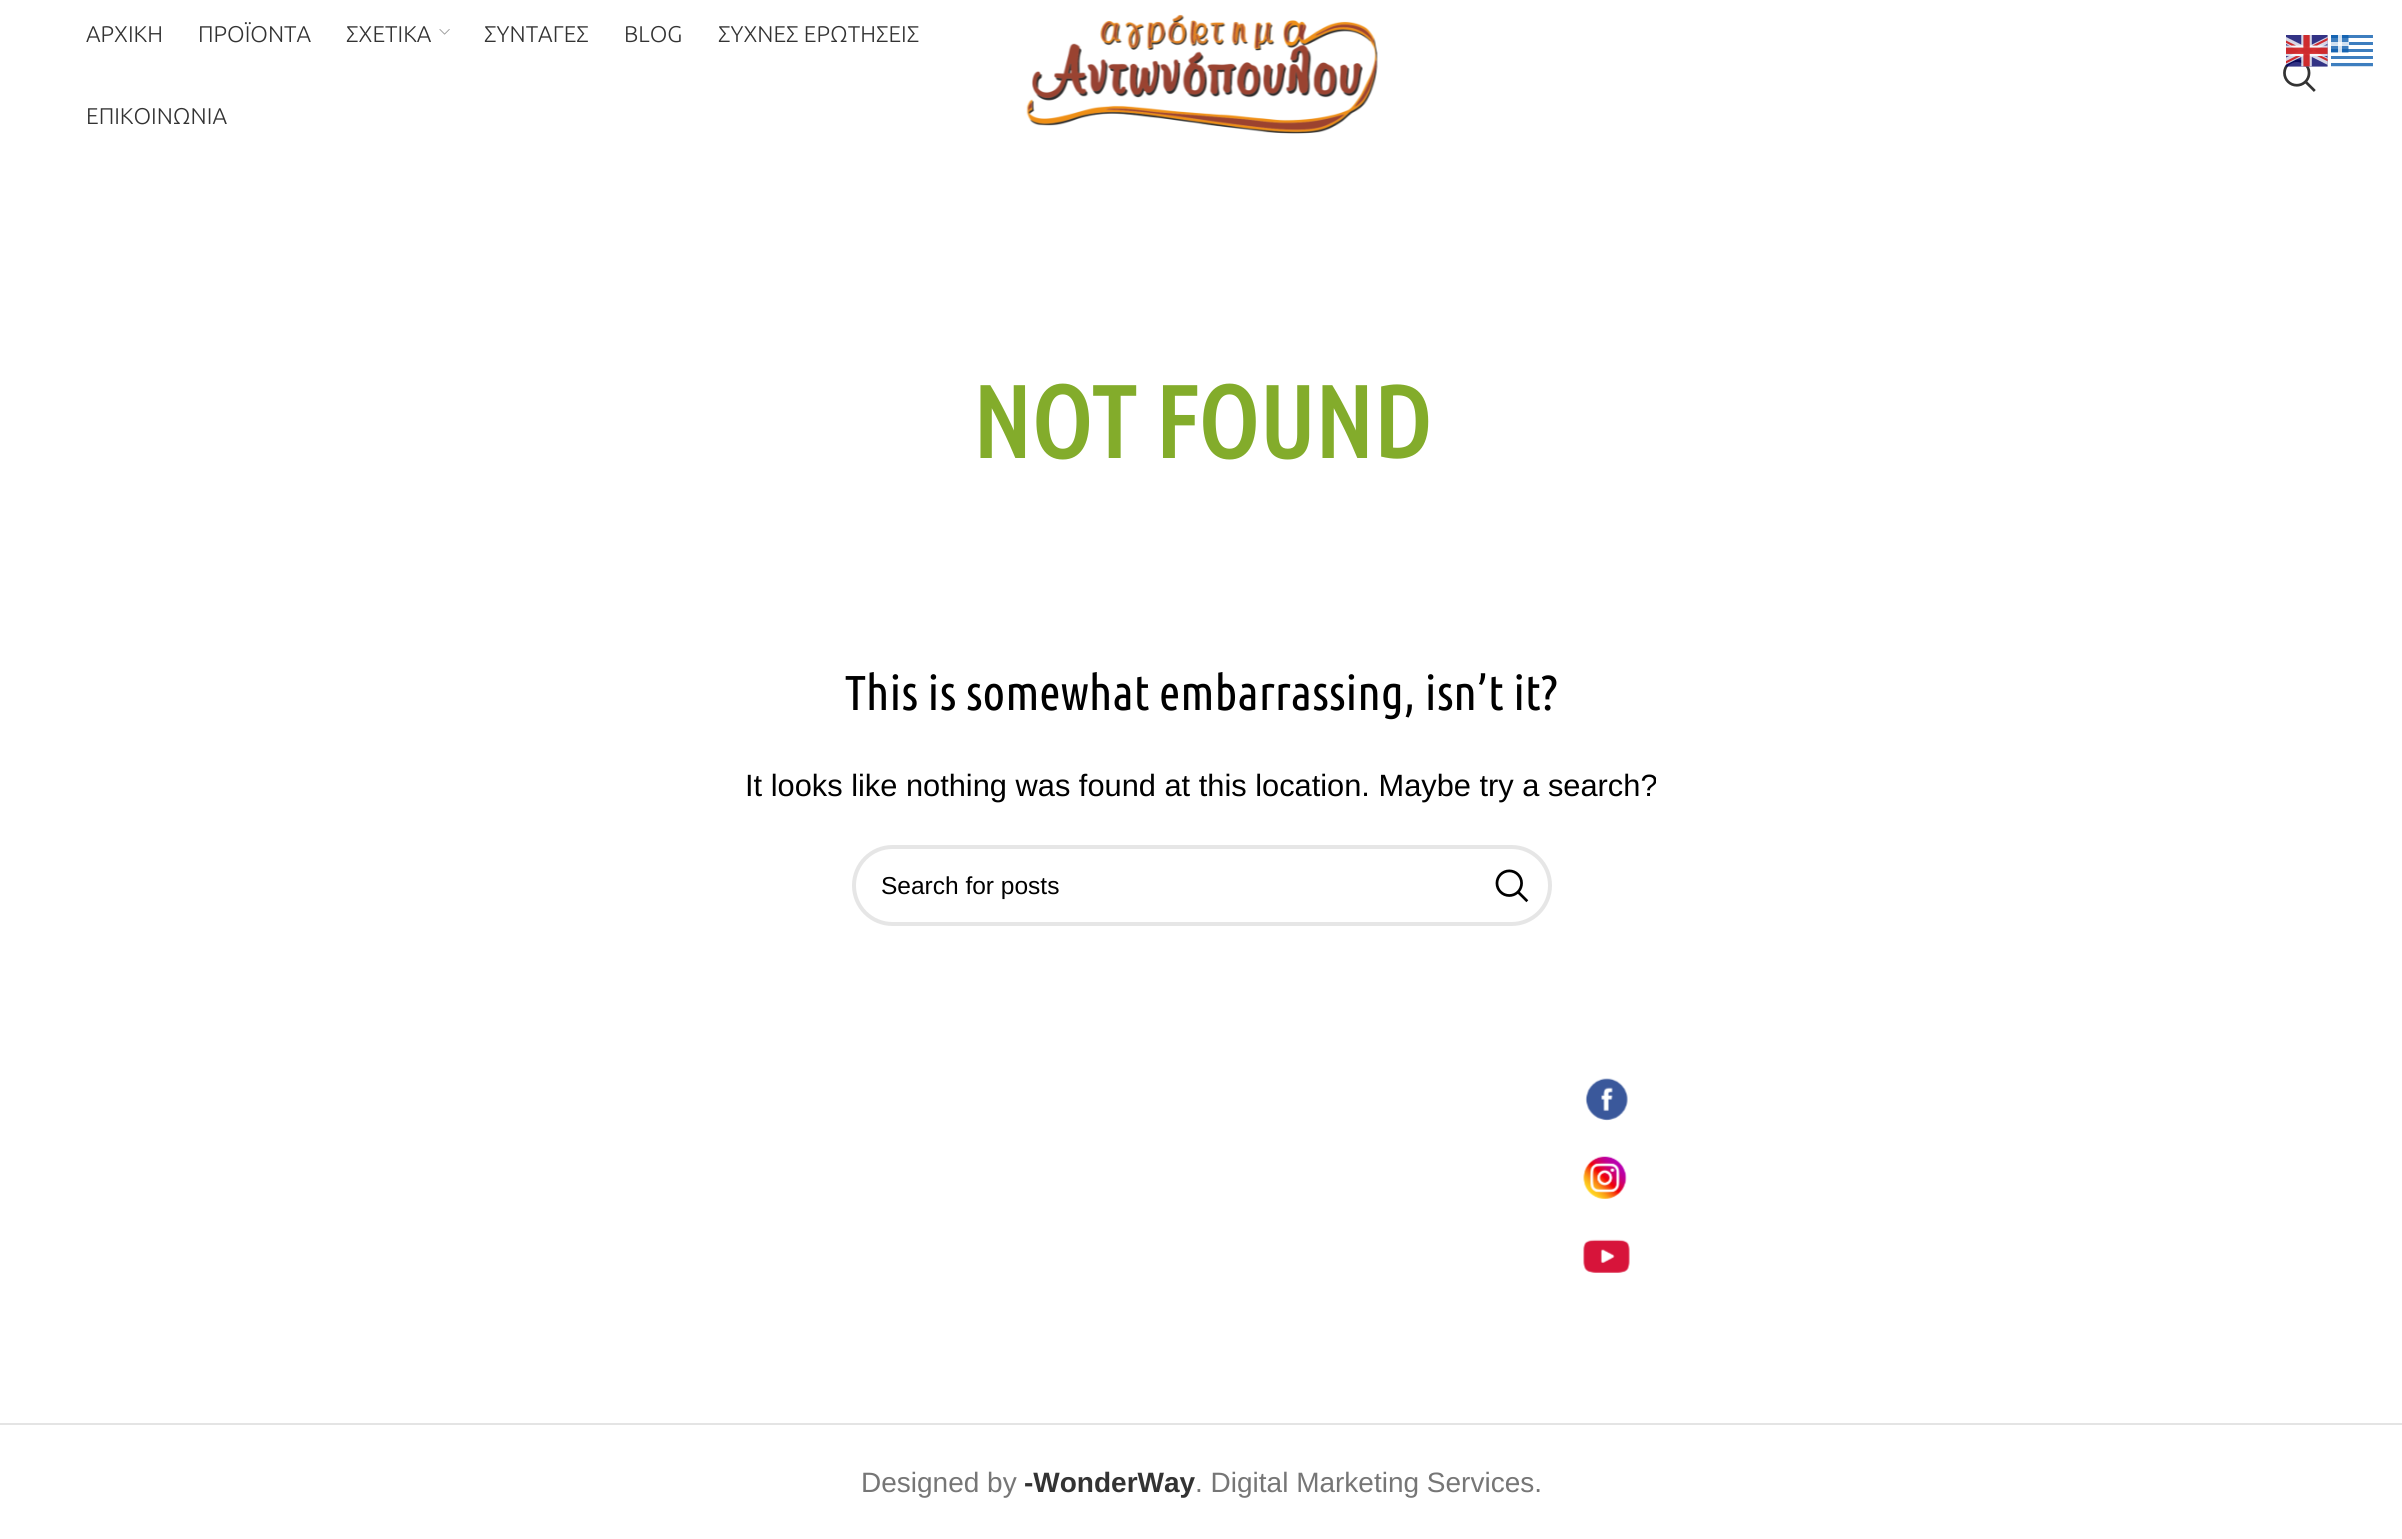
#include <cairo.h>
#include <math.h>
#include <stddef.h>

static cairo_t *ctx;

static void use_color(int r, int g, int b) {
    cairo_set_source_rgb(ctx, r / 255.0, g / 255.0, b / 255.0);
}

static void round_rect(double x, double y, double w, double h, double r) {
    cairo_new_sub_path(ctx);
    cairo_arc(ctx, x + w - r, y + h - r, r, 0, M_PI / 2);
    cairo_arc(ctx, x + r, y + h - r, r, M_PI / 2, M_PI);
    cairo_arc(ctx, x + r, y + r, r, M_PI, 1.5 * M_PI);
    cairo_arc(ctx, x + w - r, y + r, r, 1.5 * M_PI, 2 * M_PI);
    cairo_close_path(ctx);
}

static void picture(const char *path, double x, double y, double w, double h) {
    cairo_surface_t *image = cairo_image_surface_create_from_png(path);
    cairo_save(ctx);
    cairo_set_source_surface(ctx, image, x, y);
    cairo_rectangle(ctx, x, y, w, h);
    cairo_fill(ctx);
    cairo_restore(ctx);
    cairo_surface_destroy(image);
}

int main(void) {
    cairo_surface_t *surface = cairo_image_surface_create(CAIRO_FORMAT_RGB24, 2402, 1539);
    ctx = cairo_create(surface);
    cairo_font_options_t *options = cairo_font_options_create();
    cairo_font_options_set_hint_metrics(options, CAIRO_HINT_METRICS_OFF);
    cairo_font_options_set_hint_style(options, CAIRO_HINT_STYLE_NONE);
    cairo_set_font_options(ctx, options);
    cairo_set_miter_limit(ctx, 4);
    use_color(255, 255, 255);
    cairo_paint(ctx);
    cairo_select_font_face(ctx, "Ubuntu Light", CAIRO_FONT_SLANT_NORMAL, CAIRO_FONT_WEIGHT_NORMAL);
    cairo_set_font_size(ctx, 22.75);
    use_color(51, 51, 51);
    cairo_move_to(ctx, 86, 42);
    cairo_show_text(ctx, "ΑΡΧΙΚΗ");
    cairo_move_to(ctx, 198, 42);
    cairo_show_text(ctx, "ΠΡΟΪOΝΤΑ");
    cairo_move_to(ctx, 346, 42);
    cairo_show_text(ctx, "ΣΧΕΤΙΚΑ");
    picture("img1.png", 439, 29, 11, 6);
    cairo_move_to(ctx, 484, 42);
    cairo_show_text(ctx, "ΣΥΝΤΑΓΕΣ");
    cairo_move_to(ctx, 624, 42);
    cairo_show_text(ctx, "BLOG");
    cairo_move_to(ctx, 718, 42);
    cairo_show_text(ctx, "ΣΥΧΝΕΣ ΕΡΩΤΗΣΕΙΣ");
    cairo_move_to(ctx, 86, 124);
    cairo_show_text(ctx, "ΕΠΙΚΟΙΝΩΝΙΑ");
    picture("img2.png", 1026, 14, 352, 120);
    picture("img3.png", 2283, 59, 33, 33);
    cairo_select_font_face(ctx, "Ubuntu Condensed", CAIRO_FONT_SLANT_NORMAL, CAIRO_FONT_WEIGHT_BOLD);
    cairo_set_font_size(ctx, 101);
    use_color(131, 172, 43);
    cairo_move_to(ctx, 972, 458);
    cairo_show_text(ctx, "NOT FOUND");
    cairo_select_font_face(ctx, "Ubuntu Condensed", CAIRO_FONT_SLANT_NORMAL, CAIRO_FONT_WEIGHT_NORMAL);
    cairo_set_font_size(ctx, 49);
    use_color(0, 0, 0);
    cairo_move_to(ctx, 845, 710);
    cairo_show_text(ctx, "This is somewhat embarrassing, isn’t it?");
    cairo_select_font_face(ctx, "Liberation Sans", CAIRO_FONT_SLANT_NORMAL, CAIRO_FONT_WEIGHT_NORMAL);
    cairo_set_font_size(ctx, 30.8);
    cairo_move_to(ctx, 745, 796);
    cairo_show_text(ctx, "It looks like nothing was found at this location. Maybe try a search?");
    round_rect(854, 847, 696, 77, 38.5);
    use_color(230, 230, 230);
    cairo_set_line_width(ctx, 4);
    cairo_stroke(ctx);
    cairo_set_font_size(ctx, 24.5);
    use_color(0, 0, 0);
    cairo_move_to(ctx, 881, 894);
    cairo_show_text(ctx, "Search for posts");
    picture("img4.png", 1495, 869, 34, 34);
    picture("img5.png", 1585, 1078, 43, 43);
    picture("img6.png", 1583, 1156, 44, 43);
    picture("img7.png", 1583, 1239, 47, 34);
    use_color(228, 228, 228);
    cairo_rectangle(ctx, 0, 1423, 2402, 2);
    cairo_fill(ctx);
    cairo_set_font_size(ctx, 28);
    use_color(118, 118, 118);
    cairo_move_to(ctx, 861, 1492);
    cairo_show_text(ctx, "Designed by");
    cairo_select_font_face(ctx, "Liberation Sans", CAIRO_FONT_SLANT_NORMAL, CAIRO_FONT_WEIGHT_BOLD);
    use_color(51, 51, 51);
    cairo_move_to(ctx, 1024, 1492);
    cairo_show_text(ctx, "-WonderWay");
    cairo_select_font_face(ctx, "Liberation Sans", CAIRO_FONT_SLANT_NORMAL, CAIRO_FONT_WEIGHT_NORMAL);
    use_color(118, 118, 118);
    cairo_move_to(ctx, 1195, 1492);
    cairo_show_text(ctx, ". Digital Marketing Services.");
    picture("img8.png", 2286, 35, 42, 32);
    picture("img9.png", 2331, 35, 42, 32);
    cairo_surface_write_to_png(surface, "result.png");
    cairo_font_options_destroy(options);
    cairo_destroy(ctx);
    cairo_surface_destroy(surface);
    return 0;
}
